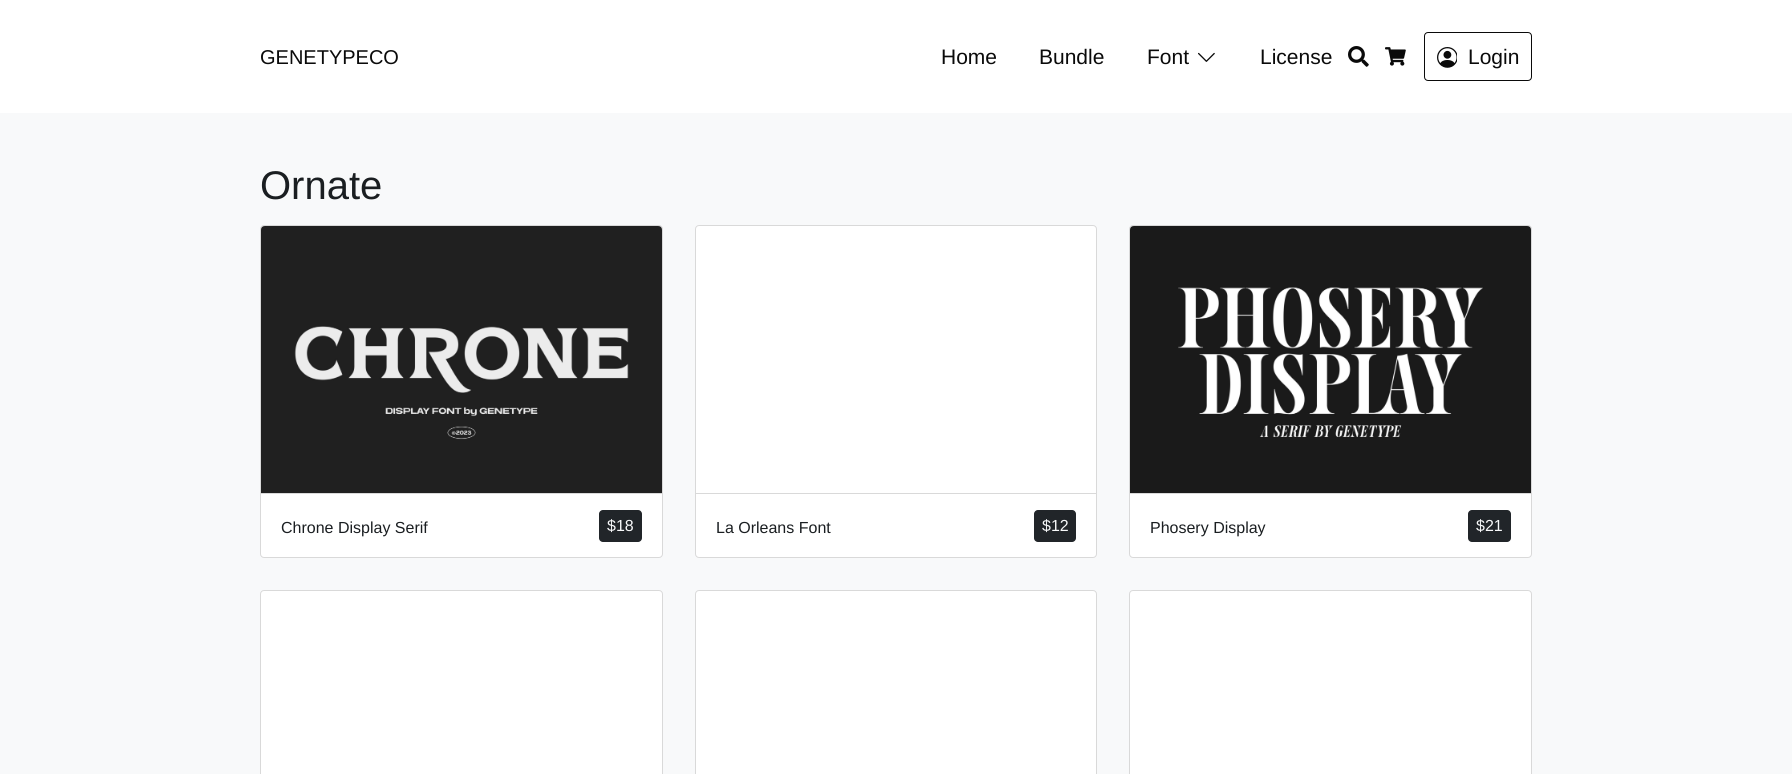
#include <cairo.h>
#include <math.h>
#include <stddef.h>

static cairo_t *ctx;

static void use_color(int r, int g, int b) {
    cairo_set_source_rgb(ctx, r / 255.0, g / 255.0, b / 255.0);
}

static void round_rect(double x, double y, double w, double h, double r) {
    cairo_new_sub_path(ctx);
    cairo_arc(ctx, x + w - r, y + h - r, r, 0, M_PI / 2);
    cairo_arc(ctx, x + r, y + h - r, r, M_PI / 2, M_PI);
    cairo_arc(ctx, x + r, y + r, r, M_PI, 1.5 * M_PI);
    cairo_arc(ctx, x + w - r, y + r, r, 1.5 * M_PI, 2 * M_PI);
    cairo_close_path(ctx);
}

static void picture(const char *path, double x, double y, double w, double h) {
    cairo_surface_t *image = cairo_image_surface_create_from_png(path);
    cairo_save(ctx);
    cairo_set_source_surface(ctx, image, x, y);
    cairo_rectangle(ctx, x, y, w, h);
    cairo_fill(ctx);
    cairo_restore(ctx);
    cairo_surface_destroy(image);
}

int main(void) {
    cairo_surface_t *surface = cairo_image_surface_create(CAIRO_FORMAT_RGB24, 1792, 774);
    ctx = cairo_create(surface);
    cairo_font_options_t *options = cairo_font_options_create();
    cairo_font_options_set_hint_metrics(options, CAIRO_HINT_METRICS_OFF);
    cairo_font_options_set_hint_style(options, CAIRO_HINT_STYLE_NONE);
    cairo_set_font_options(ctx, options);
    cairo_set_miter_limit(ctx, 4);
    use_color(248, 249, 250);
    cairo_paint(ctx);
    use_color(255, 255, 255);
    cairo_rectangle(ctx, 0, 0, 1792, 113);
    cairo_fill(ctx);
    cairo_select_font_face(ctx, "Liberation Sans", CAIRO_FONT_SLANT_NORMAL, CAIRO_FONT_WEIGHT_NORMAL);
    cairo_set_font_size(ctx, 20);
    use_color(10, 10, 10);
    cairo_move_to(ctx, 260, 64);
    cairo_show_text(ctx, "GENETYPECO");
    cairo_set_font_size(ctx, 21);
    cairo_move_to(ctx, 941, 64);
    cairo_show_text(ctx, "Home");
    cairo_move_to(ctx, 1039, 64);
    cairo_show_text(ctx, "Bundle");
    cairo_move_to(ctx, 1147, 64);
    cairo_show_text(ctx, "Font");
    picture("img1.png", 1198, 52, 17, 10);
    cairo_move_to(ctx, 1260, 64);
    cairo_show_text(ctx, "License");
    picture("img2.png", 1348, 46, 21, 21);
    picture("img3.png", 1385, 47, 21, 19);
    round_rect(1424.5, 32.5, 107, 48, 3.5);
    cairo_set_line_width(ctx, 1);
    cairo_stroke(ctx);
    picture("img4.png", 1437, 47, 20, 21);
    cairo_move_to(ctx, 1468, 64);
    cairo_show_text(ctx, "Login");
    cairo_set_font_size(ctx, 40);
    use_color(26, 30, 33);
    cairo_move_to(ctx, 260, 199);
    cairo_show_text(ctx, "Ornate");
    use_color(255, 255, 255);
    round_rect(260.5, 225.5, 402, 332, 3.5);
    cairo_fill_preserve(ctx);
    use_color(217, 217, 217);
    cairo_stroke(ctx);
    picture("img5.png", 261, 226, 401, 267);
    cairo_rectangle(ctx, 261, 493, 401, 1);
    cairo_fill(ctx);
    cairo_set_font_size(ctx, 16);
    use_color(26, 30, 33);
    cairo_move_to(ctx, 281, 533);
    cairo_show_text(ctx, "Chrone Display Serif");
    use_color(33, 37, 41);
    round_rect(599, 510, 43, 32, 4);
    cairo_fill(ctx);
    use_color(248, 249, 250);
    cairo_move_to(ctx, 607, 531);
    cairo_show_text(ctx, "$18");
    use_color(255, 255, 255);
    round_rect(695.5, 225.5, 401, 332, 3.5);
    cairo_fill_preserve(ctx);
    use_color(217, 217, 217);
    cairo_stroke(ctx);
    cairo_rectangle(ctx, 696, 493, 400, 1);
    cairo_fill(ctx);
    use_color(26, 30, 33);
    cairo_move_to(ctx, 716, 533);
    cairo_show_text(ctx, "La Orleans Font");
    use_color(33, 37, 41);
    round_rect(1034, 510, 42, 32, 4);
    cairo_fill(ctx);
    use_color(248, 249, 250);
    cairo_move_to(ctx, 1042, 531);
    cairo_show_text(ctx, "$12");
    use_color(255, 255, 255);
    round_rect(1129.5, 225.5, 402, 332, 3.5);
    cairo_fill_preserve(ctx);
    use_color(217, 217, 217);
    cairo_stroke(ctx);
    picture("img6.png", 1130, 226, 401, 267);
    cairo_rectangle(ctx, 1130, 493, 401, 1);
    cairo_fill(ctx);
    use_color(26, 30, 33);
    cairo_move_to(ctx, 1150, 533);
    cairo_show_text(ctx, "Phosery Display");
    use_color(33, 37, 41);
    round_rect(1468, 510, 43, 32, 4);
    cairo_fill(ctx);
    use_color(248, 249, 250);
    cairo_move_to(ctx, 1476, 531);
    cairo_show_text(ctx, "$21");
    use_color(255, 255, 255);
    round_rect(260.5, 590.5, 402, 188, 3.5);
    cairo_fill_preserve(ctx);
    use_color(217, 217, 217);
    cairo_stroke(ctx);
    use_color(255, 255, 255);
    round_rect(695.5, 590.5, 401, 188, 3.5);
    cairo_fill_preserve(ctx);
    use_color(217, 217, 217);
    cairo_stroke(ctx);
    use_color(255, 255, 255);
    round_rect(1129.5, 590.5, 402, 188, 3.5);
    cairo_fill_preserve(ctx);
    use_color(217, 217, 217);
    cairo_stroke(ctx);
    cairo_surface_write_to_png(surface, "result.png");
    cairo_font_options_destroy(options);
    cairo_destroy(ctx);
    cairo_surface_destroy(surface);
    return 0;
}
